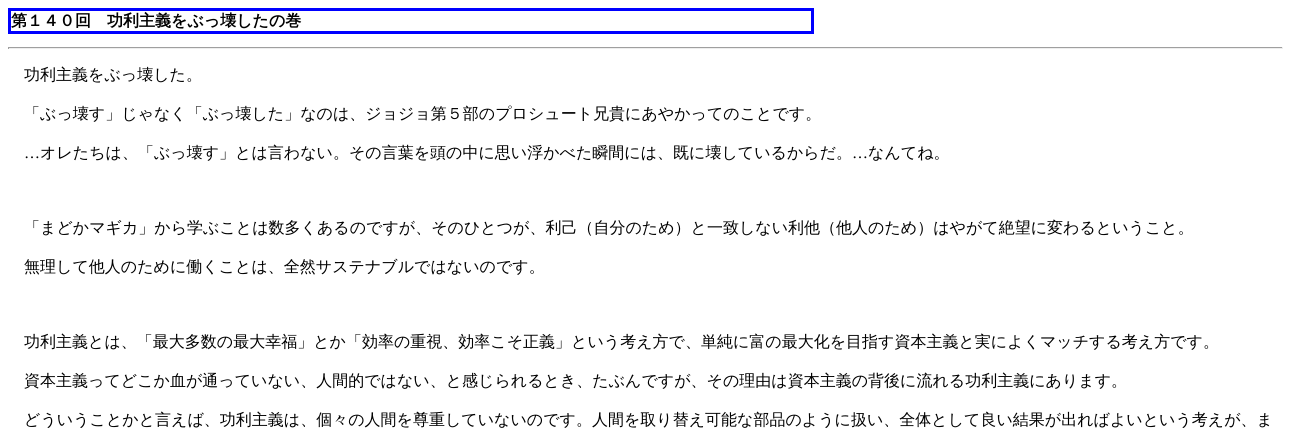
#include <cairo.h>
#include <math.h>
#include <stddef.h>

static cairo_t *ctx;

static void use_color(int r, int g, int b) {
    cairo_set_source_rgb(ctx, r / 255.0, g / 255.0, b / 255.0);
}

int main(void) {
    cairo_surface_t *surface = cairo_image_surface_create(CAIRO_FORMAT_RGB24, 1291, 431);
    ctx = cairo_create(surface);
    cairo_font_options_t *options = cairo_font_options_create();
    cairo_font_options_set_hint_metrics(options, CAIRO_HINT_METRICS_OFF);
    cairo_font_options_set_hint_style(options, CAIRO_HINT_STYLE_NONE);
    cairo_set_font_options(ctx, options);
    cairo_set_miter_limit(ctx, 4);
    use_color(255, 255, 255);
    cairo_paint(ctx);
    cairo_rectangle(ctx, 9.5, 9.5, 803, 23);
    use_color(0, 0, 255);
    cairo_set_line_width(ctx, 3);
    cairo_stroke(ctx);
    cairo_select_font_face(ctx, "WenQuanYi Zen Hei", CAIRO_FONT_SLANT_NORMAL, CAIRO_FONT_WEIGHT_BOLD);
    cairo_set_font_size(ctx, 16);
    use_color(0, 0, 0);
    cairo_move_to(ctx, 11, 26);
    cairo_show_text(ctx, "第１４０回　功利主義をぶっ壊したの巻");
    use_color(159, 159, 159);
    cairo_rectangle(ctx, 8, 47, 1275, 1);
    cairo_fill(ctx);
    use_color(238, 238, 238);
    cairo_rectangle(ctx, 1282, 47, 1, 2);
    cairo_fill(ctx);
    cairo_rectangle(ctx, 8, 48, 1275, 1);
    cairo_fill(ctx);
    use_color(159, 159, 159);
    cairo_rectangle(ctx, 8, 47, 1, 2);
    cairo_fill(ctx);
    cairo_select_font_face(ctx, "WenQuanYi Zen Hei Medium", CAIRO_FONT_SLANT_NORMAL, CAIRO_FONT_WEIGHT_NORMAL);
    use_color(0, 0, 0);
    cairo_move_to(ctx, 24, 80);
    cairo_show_text(ctx, "功利主義をぶっ壊した。");
    cairo_move_to(ctx, 24, 119);
    cairo_show_text(ctx, "「ぶっ壊す」じゃなく「ぶっ壊した」なのは、ジョジョ第５部のプロシュート兄貴にあやかってのことです。");
    cairo_select_font_face(ctx, "Liberation Serif", CAIRO_FONT_SLANT_NORMAL, CAIRO_FONT_WEIGHT_NORMAL);
    cairo_move_to(ctx, 24, 158);
    cairo_show_text(ctx, "…");
    cairo_select_font_face(ctx, "WenQuanYi Zen Hei Medium", CAIRO_FONT_SLANT_NORMAL, CAIRO_FONT_WEIGHT_NORMAL);
    cairo_move_to(ctx, 40, 158);
    cairo_show_text(ctx, "オレたちは、「ぶっ壊す」とは言わない。その言葉を頭の中に思い浮かべた瞬間には、既に壊しているからだ。");
    cairo_select_font_face(ctx, "Liberation Serif", CAIRO_FONT_SLANT_NORMAL, CAIRO_FONT_WEIGHT_NORMAL);
    cairo_move_to(ctx, 852, 158);
    cairo_show_text(ctx, "…");
    cairo_select_font_face(ctx, "WenQuanYi Zen Hei Medium", CAIRO_FONT_SLANT_NORMAL, CAIRO_FONT_WEIGHT_NORMAL);
    cairo_move_to(ctx, 868, 158);
    cairo_show_text(ctx, "なんてね。");
    cairo_move_to(ctx, 24, 233);
    cairo_show_text(ctx, "「まどかマギカ」から学ぶことは数多くあるのですが、そのひとつが、利己（自分のため）と一致しない利他（他人のため）はやがて絶望に変わるということ。");
    cairo_move_to(ctx, 24, 272);
    cairo_show_text(ctx, "無理して他人のために働くことは、全然サステナブルではないのです。");
    cairo_move_to(ctx, 24, 347);
    cairo_show_text(ctx, "功利主義とは、「最大多数の最大幸福」とか「効率の重視、効率こそ正義」という考え方で、単純に富の最大化を目指す資本主義と実によくマッチする考え方です。");
    cairo_move_to(ctx, 24, 386);
    cairo_show_text(ctx, "資本主義ってどこか血が通っていない、人間的ではない、と感じられるとき、たぶんですが、その理由は資本主義の背後に流れる功利主義にあります。");
    cairo_move_to(ctx, 24, 425);
    cairo_show_text(ctx, "どういうことかと言えば、功利主義は、個々の人間を尊重していないのです。人間を取り替え可能な部品のように扱い、全体として良い結果が出ればよいという考えが、ま");
    cairo_surface_write_to_png(surface, "result.png");
    cairo_font_options_destroy(options);
    cairo_destroy(ctx);
    cairo_surface_destroy(surface);
    return 0;
}
